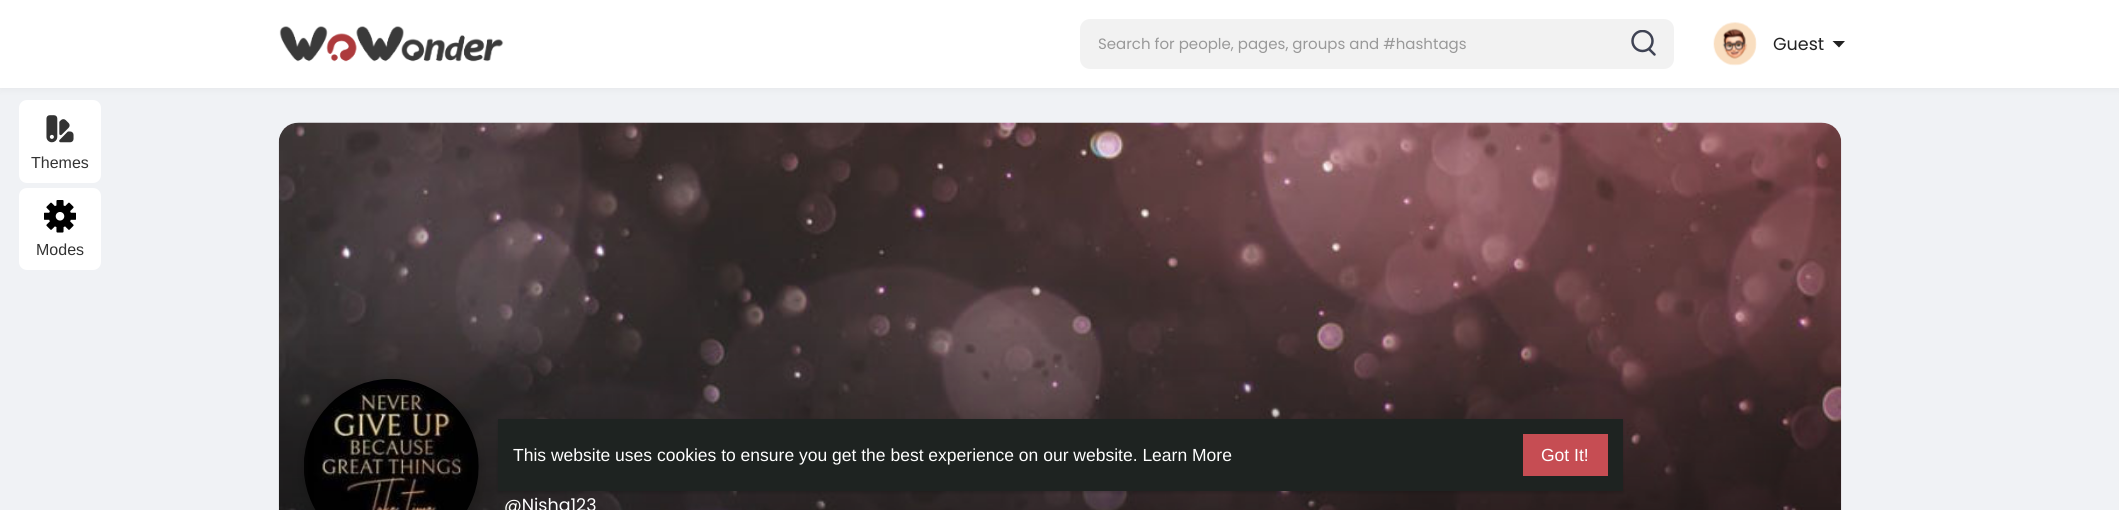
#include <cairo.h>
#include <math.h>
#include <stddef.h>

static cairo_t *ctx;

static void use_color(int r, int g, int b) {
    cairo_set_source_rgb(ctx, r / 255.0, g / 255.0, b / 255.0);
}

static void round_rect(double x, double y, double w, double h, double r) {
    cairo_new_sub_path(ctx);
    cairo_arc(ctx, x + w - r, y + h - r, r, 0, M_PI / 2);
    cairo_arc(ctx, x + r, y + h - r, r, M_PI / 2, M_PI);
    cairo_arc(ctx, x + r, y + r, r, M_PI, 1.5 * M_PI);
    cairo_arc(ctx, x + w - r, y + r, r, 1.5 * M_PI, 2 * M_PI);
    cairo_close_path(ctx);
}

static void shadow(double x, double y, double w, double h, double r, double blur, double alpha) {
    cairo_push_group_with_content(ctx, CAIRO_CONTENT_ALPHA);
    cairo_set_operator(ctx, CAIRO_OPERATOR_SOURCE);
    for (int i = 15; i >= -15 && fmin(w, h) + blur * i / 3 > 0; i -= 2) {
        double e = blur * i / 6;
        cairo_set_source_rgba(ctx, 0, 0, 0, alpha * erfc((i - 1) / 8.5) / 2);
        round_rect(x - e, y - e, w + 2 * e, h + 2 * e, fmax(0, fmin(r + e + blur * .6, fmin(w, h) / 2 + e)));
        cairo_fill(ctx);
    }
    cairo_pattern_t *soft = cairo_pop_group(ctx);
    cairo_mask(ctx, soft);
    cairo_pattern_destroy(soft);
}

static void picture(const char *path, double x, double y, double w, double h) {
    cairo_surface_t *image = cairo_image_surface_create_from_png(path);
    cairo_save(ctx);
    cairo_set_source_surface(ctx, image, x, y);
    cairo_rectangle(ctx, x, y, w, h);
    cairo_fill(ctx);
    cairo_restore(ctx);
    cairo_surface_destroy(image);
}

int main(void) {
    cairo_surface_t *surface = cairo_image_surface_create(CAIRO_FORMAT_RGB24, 2119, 510);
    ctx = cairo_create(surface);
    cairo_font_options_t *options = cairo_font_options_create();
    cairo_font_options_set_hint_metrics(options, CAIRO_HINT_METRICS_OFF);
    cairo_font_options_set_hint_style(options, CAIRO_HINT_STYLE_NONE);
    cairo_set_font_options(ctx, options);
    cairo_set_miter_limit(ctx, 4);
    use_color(240, 242, 245);
    cairo_paint(ctx);
    use_color(0, 0, 0);
    shadow(0, 1, 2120, 88, 0, 4, 0.05);
    use_color(255, 255, 255);
    cairo_rectangle(ctx, 0, 0, 2119, 88);
    cairo_fill(ctx);
    picture("img1.png", 279, 26, 225, 36);
    use_color(242, 242, 242);
    round_rect(1080, 19, 594, 50, 10);
    cairo_fill(ctx);
    cairo_select_font_face(ctx, "Poppins", CAIRO_FONT_SLANT_NORMAL, CAIRO_FONT_WEIGHT_NORMAL);
    cairo_set_font_size(ctx, 15);
    use_color(153, 153, 153);
    cairo_move_to(ctx, 1098, 49);
    cairo_show_text(ctx, "Search for people, pages, groups and #hashtags");
    cairo_save(ctx);
    cairo_rectangle(ctx, 1631, 30, 25, 26);
    cairo_clip(ctx);
    cairo_arc(ctx, 1642.5, 41, 10, 0, 2 * M_PI);
    use_color(63, 67, 84);
    cairo_set_line_width(ctx, 2.5);
    cairo_stroke(ctx);
    cairo_restore(ctx);
    cairo_new_path(ctx);
    cairo_move_to(ctx, 1649.5, 49.5);
    cairo_line_to(ctx, 1654.5, 54.5);
    use_color(63, 67, 84);
    cairo_set_line_width(ctx, 2.5);
    cairo_set_line_cap(ctx, CAIRO_LINE_CAP_ROUND);
    cairo_stroke(ctx);
    picture("img2.png", 1713, 22, 44, 44);
    cairo_set_font_size(ctx, 17.5);
    use_color(34, 34, 34);
    cairo_move_to(ctx, 1773, 50);
    cairo_show_text(ctx, "Guest");
    cairo_new_path(ctx);
    cairo_move_to(ctx, 1832.5, 41);
    cairo_line_to(ctx, 1845, 41);
    cairo_line_to(ctx, 1839, 47.5);
    cairo_close_path(ctx);
    cairo_fill(ctx);
    use_color(255, 255, 255);
    round_rect(19, 100, 82, 83, 8);
    cairo_fill(ctx);
    picture("img3.png", 46, 115, 28, 28);
    cairo_select_font_face(ctx, "Liberation Sans", CAIRO_FONT_SLANT_NORMAL, CAIRO_FONT_WEIGHT_NORMAL);
    cairo_set_font_size(ctx, 16);
    use_color(51, 51, 51);
    cairo_move_to(ctx, 31, 168);
    cairo_show_text(ctx, "Themes");
    use_color(255, 255, 255);
    round_rect(19, 188, 82, 82, 8);
    cairo_fill(ctx);
    picture("img4.png", 44, 200, 32, 33);
    use_color(51, 51, 51);
    cairo_move_to(ctx, 36, 255);
    cairo_show_text(ctx, "Modes");
    picture("img5.png", 278, 122, 1564, 388);
    use_color(0, 0, 0);
    shadow(498, 420, 1125, 73, 0, 1, 0.06);
    shadow(498, 420, 1125, 73, 0, 2, 0.1);
    use_color(30, 35, 33);
    cairo_rectangle(ctx, 498, 419, 1125, 72);
    cairo_fill(ctx);
    cairo_set_font_size(ctx, 17.5);
    use_color(255, 255, 255);
    cairo_move_to(ctx, 513, 461);
    cairo_show_text(ctx, "This website uses cookies to ensure you get the best experience on our website. Learn More");
    use_color(198, 77, 83);
    cairo_rectangle(ctx, 1523, 434, 85, 42);
    cairo_fill(ctx);
    use_color(255, 255, 255);
    cairo_move_to(ctx, 1541, 461);
    cairo_show_text(ctx, "Got It!");
    use_color(0, 0, 0);
    shadow(304, 381, 175, 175, 87.5, 6, 0.15);
    picture("img6.png", 304, 379, 175, 131);
    cairo_select_font_face(ctx, "Poppins", CAIRO_FONT_SLANT_NORMAL, CAIRO_FONT_WEIGHT_NORMAL);
    use_color(255, 255, 255);
    cairo_move_to(ctx, 504, 511);
    cairo_show_text(ctx, "@Nisha123");
    cairo_surface_write_to_png(surface, "result.png");
    cairo_font_options_destroy(options);
    cairo_destroy(ctx);
    cairo_surface_destroy(surface);
    return 0;
}
